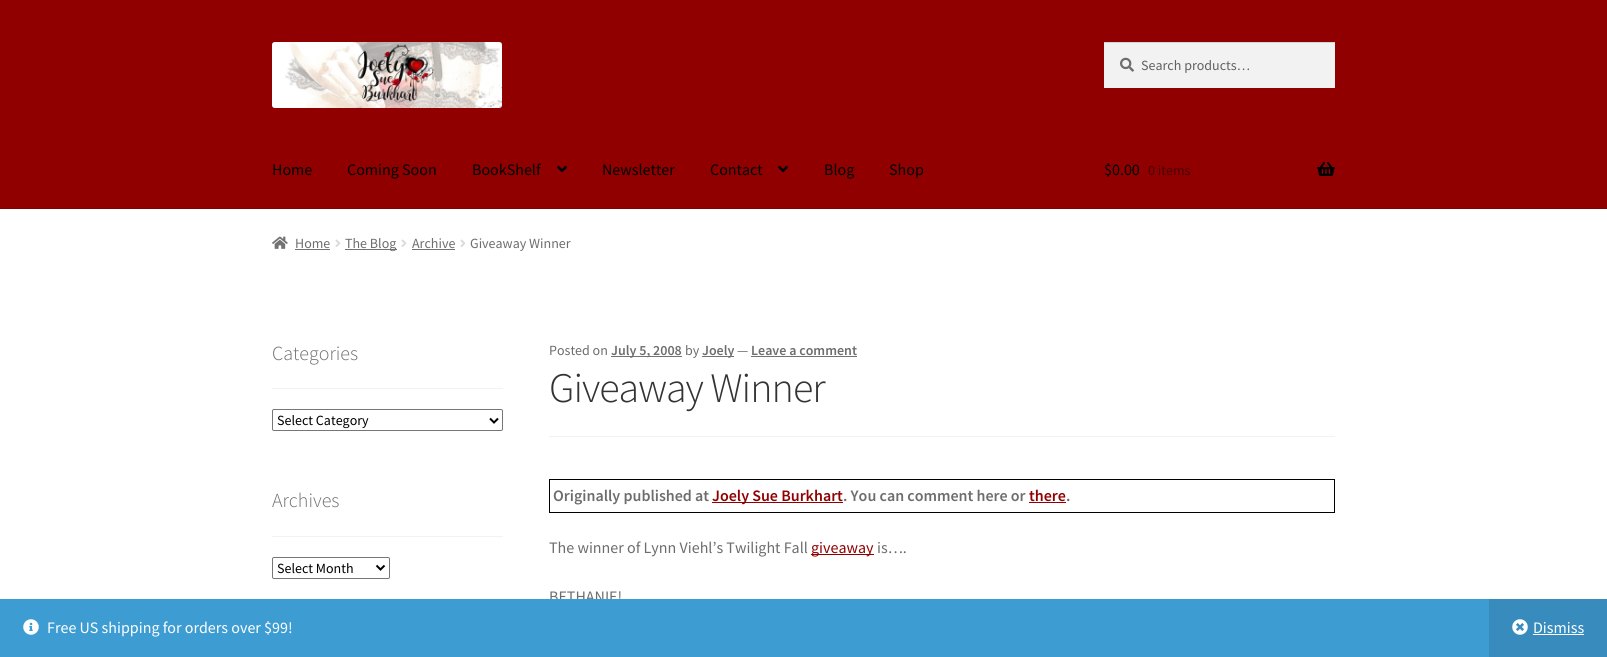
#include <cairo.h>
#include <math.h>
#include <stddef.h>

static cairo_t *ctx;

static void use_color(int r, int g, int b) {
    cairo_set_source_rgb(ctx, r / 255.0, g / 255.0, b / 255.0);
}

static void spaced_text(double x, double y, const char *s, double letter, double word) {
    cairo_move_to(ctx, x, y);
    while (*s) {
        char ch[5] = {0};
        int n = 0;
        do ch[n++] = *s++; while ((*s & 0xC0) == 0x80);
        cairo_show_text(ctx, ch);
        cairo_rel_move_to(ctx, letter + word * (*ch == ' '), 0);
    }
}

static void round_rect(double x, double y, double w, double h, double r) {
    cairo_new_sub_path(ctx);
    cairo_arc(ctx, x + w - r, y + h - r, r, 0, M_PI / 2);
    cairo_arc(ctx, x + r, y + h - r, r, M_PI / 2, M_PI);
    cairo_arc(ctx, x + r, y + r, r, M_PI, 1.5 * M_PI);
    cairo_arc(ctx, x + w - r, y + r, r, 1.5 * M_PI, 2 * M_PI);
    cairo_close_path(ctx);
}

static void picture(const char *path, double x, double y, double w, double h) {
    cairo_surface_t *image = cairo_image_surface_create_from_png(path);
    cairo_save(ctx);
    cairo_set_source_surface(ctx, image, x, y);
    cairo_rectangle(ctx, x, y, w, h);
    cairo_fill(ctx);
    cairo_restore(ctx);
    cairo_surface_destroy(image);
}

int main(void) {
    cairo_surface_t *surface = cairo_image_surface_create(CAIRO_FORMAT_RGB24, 1607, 657);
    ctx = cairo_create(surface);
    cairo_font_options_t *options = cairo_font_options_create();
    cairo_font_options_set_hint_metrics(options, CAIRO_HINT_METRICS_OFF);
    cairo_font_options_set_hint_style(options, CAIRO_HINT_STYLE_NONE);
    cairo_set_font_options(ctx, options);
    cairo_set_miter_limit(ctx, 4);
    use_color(255, 255, 255);
    cairo_paint(ctx);
    use_color(144, 0, 0);
    cairo_rectangle(ctx, 0, 0, 1607, 208);
    cairo_fill(ctx);
    use_color(129, 0, 0);
    cairo_rectangle(ctx, 0, 208, 1607, 1);
    cairo_fill(ctx);
    picture("img1.png", 272, 42, 230, 66);
    use_color(242, 242, 242);
    cairo_rectangle(ctx, 1104, 43, 231, 45);
    cairo_fill(ctx);
    picture("img2.png", 1120, 57, 14, 15);
    use_color(212, 212, 212);
    cairo_rectangle(ctx, 1104, 42, 231, 1);
    cairo_fill(ctx);
    cairo_select_font_face(ctx, "Source Sans Pro", CAIRO_FONT_SLANT_NORMAL, CAIRO_FONT_WEIGHT_NORMAL);
    cairo_set_font_size(ctx, 14);
    use_color(97, 97, 97);
    cairo_move_to(ctx, 1141, 70);
    cairo_show_text(ctx, "Search products…");
    cairo_set_font_size(ctx, 16);
    use_color(0, 0, 0);
    cairo_move_to(ctx, 272, 175);
    cairo_show_text(ctx, "Home");
    cairo_move_to(ctx, 347, 175);
    cairo_show_text(ctx, "Coming Soon");
    cairo_move_to(ctx, 472, 175);
    cairo_show_text(ctx, "BookShelf");
    picture("img3.png", 557, 165, 10, 8);
    cairo_move_to(ctx, 602, 175);
    cairo_show_text(ctx, "Newsletter");
    cairo_move_to(ctx, 710, 175);
    cairo_show_text(ctx, "Contact");
    picture("img3.png", 778, 165, 10, 8);
    cairo_move_to(ctx, 824, 175);
    cairo_show_text(ctx, "Blog");
    cairo_move_to(ctx, 889, 175);
    cairo_show_text(ctx, "Shop");
    cairo_move_to(ctx, 1104, 175);
    cairo_show_text(ctx, "$0.00");
    cairo_set_font_size(ctx, 14);
    use_color(72, 0, 0);
    cairo_move_to(ctx, 1148, 175);
    cairo_show_text(ctx, "0 items");
    picture("img4.png", 1317, 162, 18, 14);
    picture("img5.png", 272, 236, 16, 13);
    use_color(109, 109, 109);
    cairo_move_to(ctx, 295, 248);
    cairo_show_text(ctx, "Home");
    use_color(114, 114, 114);
    cairo_rectangle(ctx, 295, 249, 35, 1);
    cairo_fill(ctx);
    picture("img6.png", 335, 239, 6, 8);
    cairo_rectangle(ctx, 345, 249, 52, 1);
    cairo_fill(ctx);
    use_color(109, 109, 109);
    cairo_move_to(ctx, 345, 248);
    cairo_show_text(ctx, "The Blog");
    picture("img6.png", 401, 239, 6, 8);
    cairo_move_to(ctx, 412, 248);
    cairo_show_text(ctx, "Archive");
    use_color(114, 114, 114);
    cairo_rectangle(ctx, 412, 249, 43, 1);
    cairo_fill(ctx);
    picture("img6.png", 460, 239, 6, 8);
    use_color(109, 109, 109);
    cairo_move_to(ctx, 470, 248);
    cairo_show_text(ctx, "Giveaway Winner");
    use_color(242, 242, 242);
    cairo_rectangle(ctx, 272, 388, 231, 1);
    cairo_fill(ctx);
    cairo_select_font_face(ctx, "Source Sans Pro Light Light", CAIRO_FONT_SLANT_NORMAL, CAIRO_FONT_WEIGHT_NORMAL);
    cairo_set_font_size(ctx, 20);
    use_color(109, 109, 109);
    cairo_move_to(ctx, 272, 360);
    cairo_show_text(ctx, "Categories");
    round_rect(272.5, 409.5, 230, 21, 1.5);
    use_color(118, 118, 118);
    cairo_set_line_width(ctx, 1);
    cairo_stroke(ctx);
    cairo_new_path(ctx);
    cairo_move_to(ctx, 490, 418.5);
    cairo_line_to(ctx, 494, 422.5);
    cairo_line_to(ctx, 498, 418.5);
    use_color(0, 0, 0);
    cairo_set_line_width(ctx, 2);
    cairo_stroke(ctx);
    cairo_select_font_face(ctx, "Source Sans Pro", CAIRO_FONT_SLANT_NORMAL, CAIRO_FONT_WEIGHT_NORMAL);
    cairo_set_font_size(ctx, 14);
    cairo_move_to(ctx, 277, 425);
    cairo_show_text(ctx, "Select Category");
    use_color(242, 242, 242);
    cairo_rectangle(ctx, 272, 536, 231, 1);
    cairo_fill(ctx);
    cairo_select_font_face(ctx, "Source Sans Pro Light Light", CAIRO_FONT_SLANT_NORMAL, CAIRO_FONT_WEIGHT_NORMAL);
    cairo_set_font_size(ctx, 20);
    use_color(109, 109, 109);
    cairo_move_to(ctx, 272, 507);
    cairo_show_text(ctx, "Archives");
    round_rect(272.5, 557.5, 117, 21, 1.5);
    use_color(118, 118, 118);
    cairo_set_line_width(ctx, 1);
    cairo_stroke(ctx);
    cairo_new_path(ctx);
    cairo_move_to(ctx, 376.5, 565.5);
    cairo_line_to(ctx, 380.5, 569.5);
    cairo_line_to(ctx, 384.5, 565.5);
    use_color(0, 0, 0);
    cairo_set_line_width(ctx, 2);
    cairo_stroke(ctx);
    cairo_select_font_face(ctx, "Source Sans Pro", CAIRO_FONT_SLANT_NORMAL, CAIRO_FONT_WEIGHT_NORMAL);
    cairo_set_font_size(ctx, 14);
    cairo_move_to(ctx, 277, 573);
    cairo_show_text(ctx, "Select Month");
    use_color(242, 242, 242);
    cairo_rectangle(ctx, 549, 436, 786, 1);
    cairo_fill(ctx);
    use_color(109, 109, 109);
    cairo_move_to(ctx, 549, 355);
    cairo_show_text(ctx, "Posted on");
    use_color(114, 114, 114);
    cairo_rectangle(ctx, 611, 356, 71, 1);
    cairo_fill(ctx);
    cairo_select_font_face(ctx, "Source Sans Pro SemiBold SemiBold", CAIRO_FONT_SLANT_NORMAL, CAIRO_FONT_WEIGHT_NORMAL);
    use_color(109, 109, 109);
    cairo_move_to(ctx, 611, 355);
    cairo_show_text(ctx, "July 5, 2008");
    cairo_select_font_face(ctx, "Source Sans Pro", CAIRO_FONT_SLANT_NORMAL, CAIRO_FONT_WEIGHT_NORMAL);
    cairo_move_to(ctx, 685, 355);
    cairo_show_text(ctx, "by");
    use_color(114, 114, 114);
    cairo_rectangle(ctx, 702, 356, 32, 1);
    cairo_fill(ctx);
    cairo_select_font_face(ctx, "Source Sans Pro SemiBold SemiBold", CAIRO_FONT_SLANT_NORMAL, CAIRO_FONT_WEIGHT_NORMAL);
    use_color(109, 109, 109);
    cairo_move_to(ctx, 702, 355);
    cairo_show_text(ctx, "Joely");
    cairo_select_font_face(ctx, "Source Sans Pro", CAIRO_FONT_SLANT_NORMAL, CAIRO_FONT_WEIGHT_NORMAL);
    cairo_move_to(ctx, 737, 355);
    cairo_show_text(ctx, "—");
    use_color(114, 114, 114);
    cairo_rectangle(ctx, 751, 356, 106, 1);
    cairo_fill(ctx);
    cairo_select_font_face(ctx, "Source Sans Pro SemiBold SemiBold", CAIRO_FONT_SLANT_NORMAL, CAIRO_FONT_WEIGHT_NORMAL);
    use_color(109, 109, 109);
    cairo_move_to(ctx, 751, 355);
    cairo_show_text(ctx, "Leave a comment");
    cairo_select_font_face(ctx, "Source Sans Pro Light Light", CAIRO_FONT_SLANT_NORMAL, CAIRO_FONT_WEIGHT_NORMAL);
    cairo_set_font_size(ctx, 42);
    use_color(51, 51, 51);
    spaced_text(549, 402, "Giveaway Winner", -1, 0);
    cairo_rectangle(ctx, 549.5, 479.5, 785, 33);
    use_color(0, 0, 0);
    cairo_set_line_width(ctx, 1);
    cairo_stroke(ctx);
    cairo_select_font_face(ctx, "Source Sans Pro SemiBold SemiBold", CAIRO_FONT_SLANT_NORMAL, CAIRO_FONT_WEIGHT_NORMAL);
    cairo_set_font_size(ctx, 16);
    use_color(109, 109, 109);
    cairo_move_to(ctx, 553, 501);
    cairo_show_text(ctx, "Originally published at");
    use_color(144, 0, 0);
    cairo_rectangle(ctx, 712, 502, 131, 1);
    cairo_fill(ctx);
    cairo_move_to(ctx, 712, 501);
    cairo_show_text(ctx, "Joely Sue Burkhart");
    use_color(109, 109, 109);
    cairo_move_to(ctx, 843, 501);
    cairo_show_text(ctx, ". You can comment here or");
    use_color(144, 0, 0);
    cairo_move_to(ctx, 1029, 501);
    cairo_show_text(ctx, "there");
    use_color(109, 109, 109);
    cairo_move_to(ctx, 1066, 501);
    cairo_show_text(ctx, ".");
    use_color(144, 0, 0);
    cairo_rectangle(ctx, 1029, 502, 37, 1);
    cairo_fill(ctx);
    cairo_select_font_face(ctx, "Source Sans Pro", CAIRO_FONT_SLANT_NORMAL, CAIRO_FONT_WEIGHT_NORMAL);
    use_color(109, 109, 109);
    cairo_move_to(ctx, 549, 553);
    cairo_show_text(ctx, "The winner of Lynn Viehl’s Twilight Fall");
    use_color(144, 0, 0);
    cairo_rectangle(ctx, 811, 554, 63, 1);
    cairo_fill(ctx);
    cairo_move_to(ctx, 811, 553);
    cairo_show_text(ctx, "giveaway");
    use_color(109, 109, 109);
    cairo_move_to(ctx, 877, 553);
    cairo_show_text(ctx, "is….");
    cairo_move_to(ctx, 549, 602);
    cairo_show_text(ctx, "BETHANIE!");
    use_color(61, 156, 210);
    cairo_rectangle(ctx, 0, 599, 1489, 58);
    cairo_fill(ctx);
    picture("img7.png", 23, 619, 16, 16);
    use_color(255, 255, 255);
    cairo_move_to(ctx, 47, 633);
    cairo_show_text(ctx, "Free US shipping for orders over $99!");
    use_color(55, 140, 189);
    cairo_rectangle(ctx, 1489, 599, 118, 58);
    cairo_fill(ctx);
    picture("img8.png", 1512, 619, 16, 16);
    use_color(255, 255, 255);
    cairo_move_to(ctx, 1533, 633);
    cairo_show_text(ctx, "Dismiss");
    cairo_rectangle(ctx, 1533, 634, 51, 1);
    cairo_fill(ctx);
    cairo_surface_write_to_png(surface, "result.png");
    cairo_font_options_destroy(options);
    cairo_destroy(ctx);
    cairo_surface_destroy(surface);
    return 0;
}
